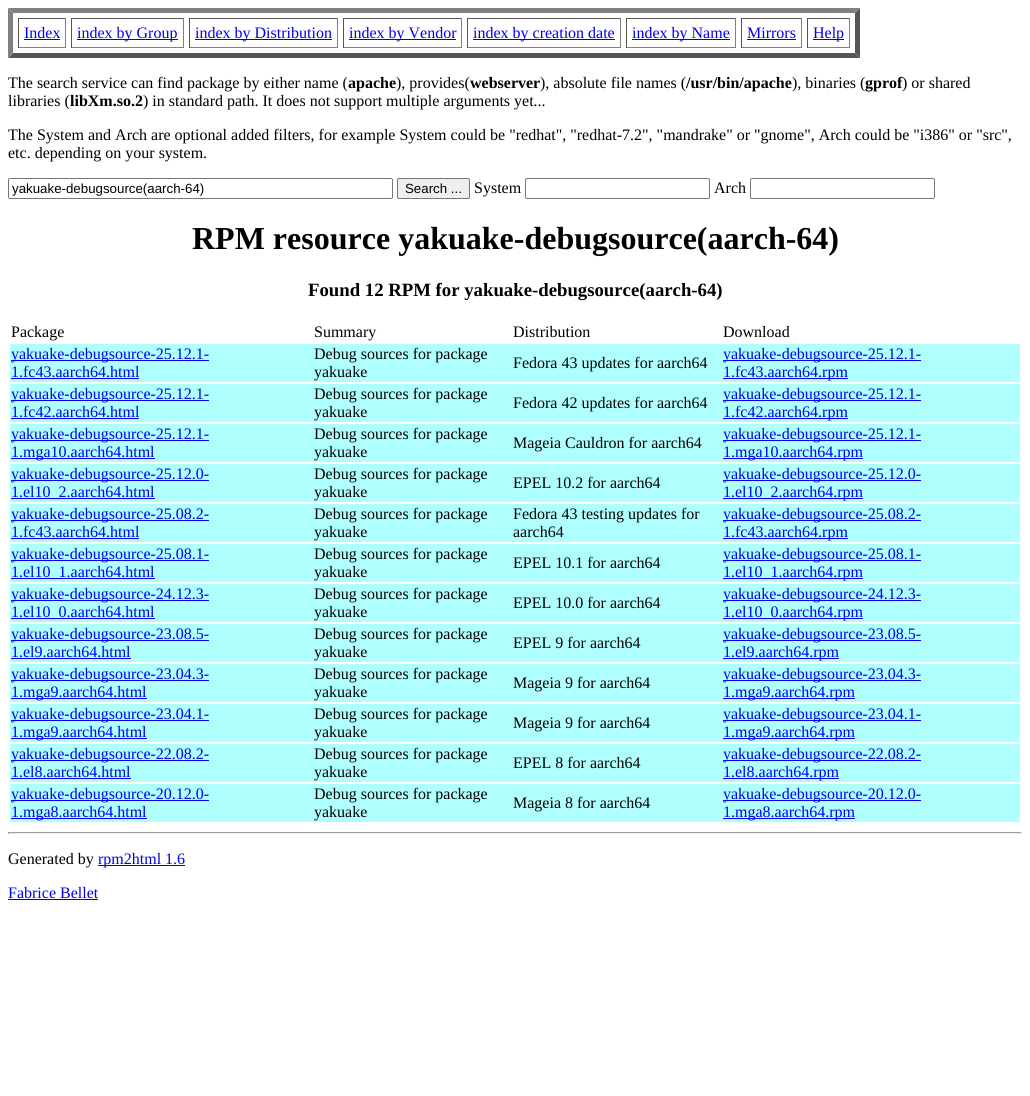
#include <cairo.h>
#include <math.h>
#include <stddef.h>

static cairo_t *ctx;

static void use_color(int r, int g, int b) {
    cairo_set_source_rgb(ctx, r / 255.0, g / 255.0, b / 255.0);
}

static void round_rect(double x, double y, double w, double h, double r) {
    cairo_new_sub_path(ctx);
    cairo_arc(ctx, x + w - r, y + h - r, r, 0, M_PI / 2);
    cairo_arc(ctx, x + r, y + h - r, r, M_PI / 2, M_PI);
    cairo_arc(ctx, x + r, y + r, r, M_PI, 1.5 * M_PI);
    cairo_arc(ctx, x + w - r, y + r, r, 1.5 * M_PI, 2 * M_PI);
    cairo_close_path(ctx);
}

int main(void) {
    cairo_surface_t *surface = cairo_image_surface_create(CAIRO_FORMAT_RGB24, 1030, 1096);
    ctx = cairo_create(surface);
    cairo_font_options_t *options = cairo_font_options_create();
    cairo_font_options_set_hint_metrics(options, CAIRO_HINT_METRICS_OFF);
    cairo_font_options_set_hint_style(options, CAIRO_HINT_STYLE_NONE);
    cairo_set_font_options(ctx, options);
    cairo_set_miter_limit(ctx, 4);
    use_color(255, 255, 255);
    cairo_paint(ctx);
    use_color(128, 128, 128);
    cairo_new_path(ctx);
    cairo_move_to(ctx, 8, 8);
    cairo_line_to(ctx, 860, 8);
    cairo_line_to(ctx, 855, 13);
    cairo_line_to(ctx, 13, 13);
    cairo_close_path(ctx);
    cairo_fill(ctx);
    use_color(85, 85, 85);
    cairo_new_path(ctx);
    cairo_move_to(ctx, 860, 8);
    cairo_line_to(ctx, 860, 58);
    cairo_line_to(ctx, 855, 53);
    cairo_line_to(ctx, 855, 13);
    cairo_close_path(ctx);
    cairo_fill(ctx);
    cairo_new_path(ctx);
    cairo_move_to(ctx, 860, 58);
    cairo_line_to(ctx, 8, 58);
    cairo_line_to(ctx, 13, 53);
    cairo_line_to(ctx, 855, 53);
    cairo_close_path(ctx);
    cairo_fill(ctx);
    use_color(128, 128, 128);
    cairo_new_path(ctx);
    cairo_move_to(ctx, 8, 58);
    cairo_line_to(ctx, 8, 8);
    cairo_line_to(ctx, 13, 13);
    cairo_line_to(ctx, 13, 53);
    cairo_close_path(ctx);
    cairo_fill(ctx);
    use_color(85, 85, 85);
    cairo_rectangle(ctx, 18, 18, 48, 1);
    cairo_fill(ctx);
    use_color(128, 128, 128);
    cairo_rectangle(ctx, 65, 18, 1, 30);
    cairo_fill(ctx);
    cairo_rectangle(ctx, 18, 47, 48, 1);
    cairo_fill(ctx);
    use_color(85, 85, 85);
    cairo_rectangle(ctx, 18, 18, 1, 30);
    cairo_fill(ctx);
    cairo_select_font_face(ctx, "Liberation Serif", CAIRO_FONT_SLANT_NORMAL, CAIRO_FONT_WEIGHT_NORMAL);
    cairo_set_font_size(ctx, 16);
    use_color(0, 0, 238);
    cairo_move_to(ctx, 24, 38);
    cairo_show_text(ctx, "Index");
    cairo_rectangle(ctx, 24, 39, 36, 1);
    cairo_fill(ctx);
    use_color(85, 85, 85);
    cairo_rectangle(ctx, 71, 18, 113, 1);
    cairo_fill(ctx);
    use_color(128, 128, 128);
    cairo_rectangle(ctx, 183, 18, 1, 30);
    cairo_fill(ctx);
    cairo_rectangle(ctx, 71, 47, 113, 1);
    cairo_fill(ctx);
    use_color(85, 85, 85);
    cairo_rectangle(ctx, 71, 18, 1, 30);
    cairo_fill(ctx);
    use_color(0, 0, 238);
    cairo_rectangle(ctx, 77, 39, 101, 1);
    cairo_fill(ctx);
    cairo_move_to(ctx, 77, 38);
    cairo_show_text(ctx, "index by Group");
    use_color(85, 85, 85);
    cairo_rectangle(ctx, 189, 18, 149, 1);
    cairo_fill(ctx);
    use_color(128, 128, 128);
    cairo_rectangle(ctx, 337, 18, 1, 30);
    cairo_fill(ctx);
    cairo_rectangle(ctx, 189, 47, 149, 1);
    cairo_fill(ctx);
    use_color(85, 85, 85);
    cairo_rectangle(ctx, 189, 18, 1, 30);
    cairo_fill(ctx);
    use_color(0, 0, 238);
    cairo_rectangle(ctx, 195, 39, 137, 1);
    cairo_fill(ctx);
    cairo_move_to(ctx, 195, 38);
    cairo_show_text(ctx, "index by Distribution");
    use_color(85, 85, 85);
    cairo_rectangle(ctx, 343, 18, 119, 1);
    cairo_fill(ctx);
    use_color(128, 128, 128);
    cairo_rectangle(ctx, 461, 18, 1, 30);
    cairo_fill(ctx);
    cairo_rectangle(ctx, 343, 47, 119, 1);
    cairo_fill(ctx);
    use_color(85, 85, 85);
    cairo_rectangle(ctx, 343, 18, 1, 30);
    cairo_fill(ctx);
    use_color(0, 0, 238);
    cairo_rectangle(ctx, 349, 39, 107, 1);
    cairo_fill(ctx);
    cairo_move_to(ctx, 349, 38);
    cairo_show_text(ctx, "index by Vendor");
    use_color(85, 85, 85);
    cairo_rectangle(ctx, 467, 18, 154, 1);
    cairo_fill(ctx);
    use_color(128, 128, 128);
    cairo_rectangle(ctx, 620, 18, 1, 30);
    cairo_fill(ctx);
    cairo_rectangle(ctx, 467, 47, 154, 1);
    cairo_fill(ctx);
    use_color(85, 85, 85);
    cairo_rectangle(ctx, 467, 18, 1, 30);
    cairo_fill(ctx);
    use_color(0, 0, 238);
    cairo_rectangle(ctx, 473, 39, 142, 1);
    cairo_fill(ctx);
    cairo_move_to(ctx, 473, 38);
    cairo_show_text(ctx, "index by creation date");
    use_color(85, 85, 85);
    cairo_rectangle(ctx, 626, 18, 110, 1);
    cairo_fill(ctx);
    use_color(128, 128, 128);
    cairo_rectangle(ctx, 735, 18, 1, 30);
    cairo_fill(ctx);
    cairo_rectangle(ctx, 626, 47, 110, 1);
    cairo_fill(ctx);
    use_color(85, 85, 85);
    cairo_rectangle(ctx, 626, 18, 1, 30);
    cairo_fill(ctx);
    use_color(0, 0, 238);
    cairo_rectangle(ctx, 632, 39, 98, 1);
    cairo_fill(ctx);
    cairo_move_to(ctx, 632, 38);
    cairo_show_text(ctx, "index by Name");
    use_color(85, 85, 85);
    cairo_rectangle(ctx, 741, 18, 61, 1);
    cairo_fill(ctx);
    use_color(128, 128, 128);
    cairo_rectangle(ctx, 801, 18, 1, 30);
    cairo_fill(ctx);
    cairo_rectangle(ctx, 741, 47, 61, 1);
    cairo_fill(ctx);
    use_color(85, 85, 85);
    cairo_rectangle(ctx, 741, 18, 1, 30);
    cairo_fill(ctx);
    use_color(0, 0, 238);
    cairo_move_to(ctx, 747, 38);
    cairo_show_text(ctx, "Mirrors");
    cairo_rectangle(ctx, 747, 39, 49, 1);
    cairo_fill(ctx);
    use_color(85, 85, 85);
    cairo_rectangle(ctx, 807, 18, 43, 1);
    cairo_fill(ctx);
    use_color(128, 128, 128);
    cairo_rectangle(ctx, 849, 18, 1, 30);
    cairo_fill(ctx);
    cairo_rectangle(ctx, 807, 47, 43, 1);
    cairo_fill(ctx);
    use_color(85, 85, 85);
    cairo_rectangle(ctx, 807, 18, 1, 30);
    cairo_fill(ctx);
    use_color(0, 0, 238);
    cairo_rectangle(ctx, 813, 39, 31, 1);
    cairo_fill(ctx);
    cairo_move_to(ctx, 813, 38);
    cairo_show_text(ctx, "Help");
    use_color(0, 0, 0);
    cairo_move_to(ctx, 8, 88);
    cairo_show_text(ctx, "The search service can find package by either name (");
    cairo_select_font_face(ctx, "Liberation Serif", CAIRO_FONT_SLANT_NORMAL, CAIRO_FONT_WEIGHT_BOLD);
    cairo_move_to(ctx, 348, 88);
    cairo_show_text(ctx, "apache");
    cairo_select_font_face(ctx, "Liberation Serif", CAIRO_FONT_SLANT_NORMAL, CAIRO_FONT_WEIGHT_NORMAL);
    cairo_move_to(ctx, 396, 88);
    cairo_show_text(ctx, "), provides(");
    cairo_select_font_face(ctx, "Liberation Serif", CAIRO_FONT_SLANT_NORMAL, CAIRO_FONT_WEIGHT_BOLD);
    cairo_move_to(ctx, 470, 88);
    cairo_show_text(ctx, "webserver");
    cairo_select_font_face(ctx, "Liberation Serif", CAIRO_FONT_SLANT_NORMAL, CAIRO_FONT_WEIGHT_NORMAL);
    cairo_move_to(ctx, 540, 88);
    cairo_show_text(ctx, "), absolute file names (");
    cairo_select_font_face(ctx, "Liberation Serif", CAIRO_FONT_SLANT_NORMAL, CAIRO_FONT_WEIGHT_BOLD);
    cairo_move_to(ctx, 686, 88);
    cairo_show_text(ctx, "/usr/bin/apache");
    cairo_select_font_face(ctx, "Liberation Serif", CAIRO_FONT_SLANT_NORMAL, CAIRO_FONT_WEIGHT_NORMAL);
    cairo_move_to(ctx, 792, 88);
    cairo_show_text(ctx, "), binaries (");
    cairo_select_font_face(ctx, "Liberation Serif", CAIRO_FONT_SLANT_NORMAL, CAIRO_FONT_WEIGHT_BOLD);
    cairo_move_to(ctx, 865, 88);
    cairo_show_text(ctx, "gprof");
    cairo_select_font_face(ctx, "Liberation Serif", CAIRO_FONT_SLANT_NORMAL, CAIRO_FONT_WEIGHT_NORMAL);
    cairo_move_to(ctx, 902, 88);
    cairo_show_text(ctx, ") or shared");
    cairo_move_to(ctx, 8, 106);
    cairo_show_text(ctx, "libraries (");
    cairo_select_font_face(ctx, "Liberation Serif", CAIRO_FONT_SLANT_NORMAL, CAIRO_FONT_WEIGHT_BOLD);
    cairo_move_to(ctx, 70, 106);
    cairo_show_text(ctx, "libXm.so.2");
    cairo_select_font_face(ctx, "Liberation Serif", CAIRO_FONT_SLANT_NORMAL, CAIRO_FONT_WEIGHT_NORMAL);
    cairo_move_to(ctx, 143, 106);
    cairo_show_text(ctx, ") in standard path. It does not support multiple arguments yet...");
    cairo_move_to(ctx, 8, 140);
    cairo_show_text(ctx, "The System and Arch are optional added filters, for example System could be \"redhat\", \"redhat-7.2\", \"mandrake\" or \"gnome\", Arch could be \"i386\" or \"src\",");
    cairo_move_to(ctx, 8, 158);
    cairo_show_text(ctx, "etc. depending on your system.");
    round_rect(8.5, 178.5, 384, 20, 1.5);
    use_color(118, 118, 118);
    cairo_set_line_width(ctx, 1);
    cairo_stroke(ctx);
    cairo_select_font_face(ctx, "Liberation Sans", CAIRO_FONT_SLANT_NORMAL, CAIRO_FONT_WEIGHT_NORMAL);
    cairo_set_font_size(ctx, 13.3);
    use_color(0, 0, 0);
    cairo_move_to(ctx, 12, 193);
    cairo_show_text(ctx, "yakuake-debugsource(aarch-64)");
    use_color(239, 239, 239);
    round_rect(397.5, 178.5, 72, 20, 1.5);
    cairo_fill_preserve(ctx);
    use_color(118, 118, 118);
    cairo_stroke(ctx);
    use_color(0, 0, 0);
    cairo_move_to(ctx, 405, 193);
    cairo_show_text(ctx, "Search ...");
    cairo_select_font_face(ctx, "Liberation Serif", CAIRO_FONT_SLANT_NORMAL, CAIRO_FONT_WEIGHT_NORMAL);
    cairo_set_font_size(ctx, 16);
    cairo_move_to(ctx, 474, 193);
    cairo_show_text(ctx, "System");
    round_rect(525.5, 178.5, 184, 20, 1.5);
    use_color(118, 118, 118);
    cairo_stroke(ctx);
    use_color(0, 0, 0);
    cairo_move_to(ctx, 714, 193);
    cairo_show_text(ctx, "Arch");
    round_rect(750.5, 178.5, 184, 20, 1.5);
    use_color(118, 118, 118);
    cairo_stroke(ctx);
    cairo_select_font_face(ctx, "Liberation Serif", CAIRO_FONT_SLANT_NORMAL, CAIRO_FONT_WEIGHT_BOLD);
    cairo_set_font_size(ctx, 32);
    use_color(0, 0, 0);
    cairo_move_to(ctx, 192, 249);
    cairo_show_text(ctx, "RPM resource yakuake-debugsource(aarch-64)");
    cairo_set_font_size(ctx, 18.75);
    cairo_move_to(ctx, 308, 296);
    cairo_show_text(ctx, "Found 12 RPM for yakuake-debugsource(aarch-64)");
    cairo_select_font_face(ctx, "Liberation Serif", CAIRO_FONT_SLANT_NORMAL, CAIRO_FONT_WEIGHT_NORMAL);
    cairo_set_font_size(ctx, 16);
    cairo_move_to(ctx, 11, 337);
    cairo_show_text(ctx, "Package");
    cairo_move_to(ctx, 314, 337);
    cairo_show_text(ctx, "Summary");
    cairo_move_to(ctx, 513, 337);
    cairo_show_text(ctx, "Distribution");
    cairo_move_to(ctx, 723, 337);
    cairo_show_text(ctx, "Download");
    use_color(176, 255, 255);
    cairo_rectangle(ctx, 10, 344, 1010, 38);
    cairo_fill(ctx);
    use_color(0, 0, 238);
    cairo_rectangle(ctx, 11, 360, 198, 1);
    cairo_fill(ctx);
    cairo_move_to(ctx, 11, 359);
    cairo_show_text(ctx, "yakuake-debugsource-25.12.1-");
    cairo_move_to(ctx, 11, 377);
    cairo_show_text(ctx, "1.fc43.aarch64.html");
    cairo_rectangle(ctx, 11, 378, 128, 1);
    cairo_fill(ctx);
    use_color(0, 0, 0);
    cairo_move_to(ctx, 314, 359);
    cairo_show_text(ctx, "Debug sources for package");
    cairo_move_to(ctx, 314, 377);
    cairo_show_text(ctx, "yakuake");
    cairo_move_to(ctx, 513, 368);
    cairo_show_text(ctx, "Fedora 43 updates for aarch64");
    use_color(0, 0, 238);
    cairo_rectangle(ctx, 723, 360, 198, 1);
    cairo_fill(ctx);
    cairo_move_to(ctx, 723, 359);
    cairo_show_text(ctx, "yakuake-debugsource-25.12.1-");
    cairo_rectangle(ctx, 723, 378, 125, 1);
    cairo_fill(ctx);
    cairo_move_to(ctx, 723, 377);
    cairo_show_text(ctx, "1.fc43.aarch64.rpm");
    use_color(176, 255, 255);
    cairo_rectangle(ctx, 10, 384, 1010, 38);
    cairo_fill(ctx);
    use_color(0, 0, 238);
    cairo_rectangle(ctx, 11, 400, 198, 1);
    cairo_fill(ctx);
    cairo_move_to(ctx, 11, 399);
    cairo_show_text(ctx, "yakuake-debugsource-25.12.1-");
    cairo_move_to(ctx, 11, 417);
    cairo_show_text(ctx, "1.fc42.aarch64.html");
    cairo_rectangle(ctx, 11, 418, 128, 1);
    cairo_fill(ctx);
    use_color(0, 0, 0);
    cairo_move_to(ctx, 314, 399);
    cairo_show_text(ctx, "Debug sources for package");
    cairo_move_to(ctx, 314, 417);
    cairo_show_text(ctx, "yakuake");
    cairo_move_to(ctx, 513, 408);
    cairo_show_text(ctx, "Fedora 42 updates for aarch64");
    use_color(0, 0, 238);
    cairo_rectangle(ctx, 723, 400, 198, 1);
    cairo_fill(ctx);
    cairo_move_to(ctx, 723, 399);
    cairo_show_text(ctx, "yakuake-debugsource-25.12.1-");
    cairo_rectangle(ctx, 723, 418, 125, 1);
    cairo_fill(ctx);
    cairo_move_to(ctx, 723, 417);
    cairo_show_text(ctx, "1.fc42.aarch64.rpm");
    use_color(176, 255, 255);
    cairo_rectangle(ctx, 10, 424, 1010, 38);
    cairo_fill(ctx);
    use_color(0, 0, 238);
    cairo_rectangle(ctx, 11, 440, 198, 1);
    cairo_fill(ctx);
    cairo_move_to(ctx, 11, 439);
    cairo_show_text(ctx, "yakuake-debugsource-25.12.1-");
    cairo_rectangle(ctx, 11, 458, 144, 1);
    cairo_fill(ctx);
    cairo_move_to(ctx, 11, 457);
    cairo_show_text(ctx, "1.mga10.aarch64.html");
    use_color(0, 0, 0);
    cairo_move_to(ctx, 314, 439);
    cairo_show_text(ctx, "Debug sources for package");
    cairo_move_to(ctx, 314, 457);
    cairo_show_text(ctx, "yakuake");
    cairo_move_to(ctx, 513, 448);
    cairo_show_text(ctx, "Mageia Cauldron for aarch64");
    use_color(0, 0, 238);
    cairo_rectangle(ctx, 723, 440, 198, 1);
    cairo_fill(ctx);
    cairo_move_to(ctx, 723, 439);
    cairo_show_text(ctx, "yakuake-debugsource-25.12.1-");
    cairo_rectangle(ctx, 723, 458, 140, 1);
    cairo_fill(ctx);
    cairo_move_to(ctx, 723, 457);
    cairo_show_text(ctx, "1.mga10.aarch64.rpm");
    use_color(176, 255, 255);
    cairo_rectangle(ctx, 10, 464, 1010, 38);
    cairo_fill(ctx);
    use_color(0, 0, 238);
    cairo_rectangle(ctx, 11, 480, 198, 1);
    cairo_fill(ctx);
    cairo_move_to(ctx, 11, 479);
    cairo_show_text(ctx, "yakuake-debugsource-25.12.0-");
    cairo_rectangle(ctx, 11, 498, 144, 1);
    cairo_fill(ctx);
    cairo_move_to(ctx, 11, 497);
    cairo_show_text(ctx, "1.el10_2.aarch64.html");
    use_color(0, 0, 0);
    cairo_move_to(ctx, 314, 479);
    cairo_show_text(ctx, "Debug sources for package");
    cairo_move_to(ctx, 314, 497);
    cairo_show_text(ctx, "yakuake");
    cairo_move_to(ctx, 513, 488);
    cairo_show_text(ctx, "EPEL 10.2 for aarch64");
    use_color(0, 0, 238);
    cairo_rectangle(ctx, 723, 480, 198, 1);
    cairo_fill(ctx);
    cairo_move_to(ctx, 723, 479);
    cairo_show_text(ctx, "yakuake-debugsource-25.12.0-");
    cairo_rectangle(ctx, 723, 498, 140, 1);
    cairo_fill(ctx);
    cairo_move_to(ctx, 723, 497);
    cairo_show_text(ctx, "1.el10_2.aarch64.rpm");
    use_color(176, 255, 255);
    cairo_rectangle(ctx, 10, 504, 1010, 38);
    cairo_fill(ctx);
    use_color(0, 0, 238);
    cairo_rectangle(ctx, 11, 520, 198, 1);
    cairo_fill(ctx);
    cairo_move_to(ctx, 11, 519);
    cairo_show_text(ctx, "yakuake-debugsource-25.08.2-");
    cairo_move_to(ctx, 11, 537);
    cairo_show_text(ctx, "1.fc43.aarch64.html");
    cairo_rectangle(ctx, 11, 538, 128, 1);
    cairo_fill(ctx);
    use_color(0, 0, 0);
    cairo_move_to(ctx, 314, 519);
    cairo_show_text(ctx, "Debug sources for package");
    cairo_move_to(ctx, 314, 537);
    cairo_show_text(ctx, "yakuake");
    cairo_move_to(ctx, 513, 519);
    cairo_show_text(ctx, "Fedora 43 testing updates for");
    cairo_move_to(ctx, 513, 537);
    cairo_show_text(ctx, "aarch64");
    use_color(0, 0, 238);
    cairo_rectangle(ctx, 723, 520, 198, 1);
    cairo_fill(ctx);
    cairo_move_to(ctx, 723, 519);
    cairo_show_text(ctx, "yakuake-debugsource-25.08.2-");
    cairo_rectangle(ctx, 723, 538, 125, 1);
    cairo_fill(ctx);
    cairo_move_to(ctx, 723, 537);
    cairo_show_text(ctx, "1.fc43.aarch64.rpm");
    use_color(176, 255, 255);
    cairo_rectangle(ctx, 10, 544, 1010, 38);
    cairo_fill(ctx);
    use_color(0, 0, 238);
    cairo_rectangle(ctx, 11, 560, 198, 1);
    cairo_fill(ctx);
    cairo_move_to(ctx, 11, 559);
    cairo_show_text(ctx, "yakuake-debugsource-25.08.1-");
    cairo_rectangle(ctx, 11, 578, 144, 1);
    cairo_fill(ctx);
    cairo_move_to(ctx, 11, 577);
    cairo_show_text(ctx, "1.el10_1.aarch64.html");
    use_color(0, 0, 0);
    cairo_move_to(ctx, 314, 559);
    cairo_show_text(ctx, "Debug sources for package");
    cairo_move_to(ctx, 314, 577);
    cairo_show_text(ctx, "yakuake");
    cairo_move_to(ctx, 513, 568);
    cairo_show_text(ctx, "EPEL 10.1 for aarch64");
    use_color(0, 0, 238);
    cairo_rectangle(ctx, 723, 560, 198, 1);
    cairo_fill(ctx);
    cairo_move_to(ctx, 723, 559);
    cairo_show_text(ctx, "yakuake-debugsource-25.08.1-");
    cairo_rectangle(ctx, 723, 578, 140, 1);
    cairo_fill(ctx);
    cairo_move_to(ctx, 723, 577);
    cairo_show_text(ctx, "1.el10_1.aarch64.rpm");
    use_color(176, 255, 255);
    cairo_rectangle(ctx, 10, 584, 1010, 38);
    cairo_fill(ctx);
    use_color(0, 0, 238);
    cairo_rectangle(ctx, 11, 600, 198, 1);
    cairo_fill(ctx);
    cairo_move_to(ctx, 11, 599);
    cairo_show_text(ctx, "yakuake-debugsource-24.12.3-");
    cairo_rectangle(ctx, 11, 618, 144, 1);
    cairo_fill(ctx);
    cairo_move_to(ctx, 11, 617);
    cairo_show_text(ctx, "1.el10_0.aarch64.html");
    use_color(0, 0, 0);
    cairo_move_to(ctx, 314, 599);
    cairo_show_text(ctx, "Debug sources for package");
    cairo_move_to(ctx, 314, 617);
    cairo_show_text(ctx, "yakuake");
    cairo_move_to(ctx, 513, 608);
    cairo_show_text(ctx, "EPEL 10.0 for aarch64");
    use_color(0, 0, 238);
    cairo_rectangle(ctx, 723, 600, 198, 1);
    cairo_fill(ctx);
    cairo_move_to(ctx, 723, 599);
    cairo_show_text(ctx, "yakuake-debugsource-24.12.3-");
    cairo_rectangle(ctx, 723, 618, 140, 1);
    cairo_fill(ctx);
    cairo_move_to(ctx, 723, 617);
    cairo_show_text(ctx, "1.el10_0.aarch64.rpm");
    use_color(176, 255, 255);
    cairo_rectangle(ctx, 10, 624, 1010, 38);
    cairo_fill(ctx);
    use_color(0, 0, 238);
    cairo_rectangle(ctx, 11, 640, 198, 1);
    cairo_fill(ctx);
    cairo_move_to(ctx, 11, 639);
    cairo_show_text(ctx, "yakuake-debugsource-23.08.5-");
    cairo_move_to(ctx, 11, 657);
    cairo_show_text(ctx, "1.el9.aarch64.html");
    cairo_rectangle(ctx, 11, 658, 120, 1);
    cairo_fill(ctx);
    use_color(0, 0, 0);
    cairo_move_to(ctx, 314, 639);
    cairo_show_text(ctx, "Debug sources for package");
    cairo_move_to(ctx, 314, 657);
    cairo_show_text(ctx, "yakuake");
    cairo_move_to(ctx, 513, 648);
    cairo_show_text(ctx, "EPEL 9 for aarch64");
    use_color(0, 0, 238);
    cairo_rectangle(ctx, 723, 640, 198, 1);
    cairo_fill(ctx);
    cairo_move_to(ctx, 723, 639);
    cairo_show_text(ctx, "yakuake-debugsource-23.08.5-");
    cairo_rectangle(ctx, 723, 658, 116, 1);
    cairo_fill(ctx);
    cairo_move_to(ctx, 723, 657);
    cairo_show_text(ctx, "1.el9.aarch64.rpm");
    use_color(176, 255, 255);
    cairo_rectangle(ctx, 10, 664, 1010, 38);
    cairo_fill(ctx);
    use_color(0, 0, 238);
    cairo_rectangle(ctx, 11, 680, 198, 1);
    cairo_fill(ctx);
    cairo_move_to(ctx, 11, 679);
    cairo_show_text(ctx, "yakuake-debugsource-23.04.3-");
    cairo_rectangle(ctx, 11, 698, 136, 1);
    cairo_fill(ctx);
    cairo_move_to(ctx, 11, 697);
    cairo_show_text(ctx, "1.mga9.aarch64.html");
    use_color(0, 0, 0);
    cairo_move_to(ctx, 314, 679);
    cairo_show_text(ctx, "Debug sources for package");
    cairo_move_to(ctx, 314, 697);
    cairo_show_text(ctx, "yakuake");
    cairo_move_to(ctx, 513, 688);
    cairo_show_text(ctx, "Mageia 9 for aarch64");
    use_color(0, 0, 238);
    cairo_rectangle(ctx, 723, 680, 198, 1);
    cairo_fill(ctx);
    cairo_move_to(ctx, 723, 679);
    cairo_show_text(ctx, "yakuake-debugsource-23.04.3-");
    cairo_rectangle(ctx, 723, 698, 132, 1);
    cairo_fill(ctx);
    cairo_move_to(ctx, 723, 697);
    cairo_show_text(ctx, "1.mga9.aarch64.rpm");
    use_color(176, 255, 255);
    cairo_rectangle(ctx, 10, 704, 1010, 38);
    cairo_fill(ctx);
    use_color(0, 0, 238);
    cairo_rectangle(ctx, 11, 720, 198, 1);
    cairo_fill(ctx);
    cairo_move_to(ctx, 11, 719);
    cairo_show_text(ctx, "yakuake-debugsource-23.04.1-");
    cairo_rectangle(ctx, 11, 738, 136, 1);
    cairo_fill(ctx);
    cairo_move_to(ctx, 11, 737);
    cairo_show_text(ctx, "1.mga9.aarch64.html");
    use_color(0, 0, 0);
    cairo_move_to(ctx, 314, 719);
    cairo_show_text(ctx, "Debug sources for package");
    cairo_move_to(ctx, 314, 737);
    cairo_show_text(ctx, "yakuake");
    cairo_move_to(ctx, 513, 728);
    cairo_show_text(ctx, "Mageia 9 for aarch64");
    use_color(0, 0, 238);
    cairo_rectangle(ctx, 723, 720, 198, 1);
    cairo_fill(ctx);
    cairo_move_to(ctx, 723, 719);
    cairo_show_text(ctx, "yakuake-debugsource-23.04.1-");
    cairo_rectangle(ctx, 723, 738, 132, 1);
    cairo_fill(ctx);
    cairo_move_to(ctx, 723, 737);
    cairo_show_text(ctx, "1.mga9.aarch64.rpm");
    use_color(176, 255, 255);
    cairo_rectangle(ctx, 10, 744, 1010, 38);
    cairo_fill(ctx);
    use_color(0, 0, 238);
    cairo_rectangle(ctx, 11, 760, 198, 1);
    cairo_fill(ctx);
    cairo_move_to(ctx, 11, 759);
    cairo_show_text(ctx, "yakuake-debugsource-22.08.2-");
    cairo_move_to(ctx, 11, 777);
    cairo_show_text(ctx, "1.el8.aarch64.html");
    cairo_rectangle(ctx, 11, 778, 120, 1);
    cairo_fill(ctx);
    use_color(0, 0, 0);
    cairo_move_to(ctx, 314, 759);
    cairo_show_text(ctx, "Debug sources for package");
    cairo_move_to(ctx, 314, 777);
    cairo_show_text(ctx, "yakuake");
    cairo_move_to(ctx, 513, 768);
    cairo_show_text(ctx, "EPEL 8 for aarch64");
    use_color(0, 0, 238);
    cairo_rectangle(ctx, 723, 760, 198, 1);
    cairo_fill(ctx);
    cairo_move_to(ctx, 723, 759);
    cairo_show_text(ctx, "yakuake-debugsource-22.08.2-");
    cairo_rectangle(ctx, 723, 778, 116, 1);
    cairo_fill(ctx);
    cairo_move_to(ctx, 723, 777);
    cairo_show_text(ctx, "1.el8.aarch64.rpm");
    use_color(176, 255, 255);
    cairo_rectangle(ctx, 10, 784, 1010, 38);
    cairo_fill(ctx);
    use_color(0, 0, 238);
    cairo_rectangle(ctx, 11, 800, 198, 1);
    cairo_fill(ctx);
    cairo_move_to(ctx, 11, 799);
    cairo_show_text(ctx, "yakuake-debugsource-20.12.0-");
    cairo_rectangle(ctx, 11, 818, 136, 1);
    cairo_fill(ctx);
    cairo_move_to(ctx, 11, 817);
    cairo_show_text(ctx, "1.mga8.aarch64.html");
    use_color(0, 0, 0);
    cairo_move_to(ctx, 314, 799);
    cairo_show_text(ctx, "Debug sources for package");
    cairo_move_to(ctx, 314, 817);
    cairo_show_text(ctx, "yakuake");
    cairo_move_to(ctx, 513, 808);
    cairo_show_text(ctx, "Mageia 8 for aarch64");
    use_color(0, 0, 238);
    cairo_rectangle(ctx, 723, 800, 198, 1);
    cairo_fill(ctx);
    cairo_move_to(ctx, 723, 799);
    cairo_show_text(ctx, "yakuake-debugsource-20.12.0-");
    cairo_rectangle(ctx, 723, 818, 132, 1);
    cairo_fill(ctx);
    cairo_move_to(ctx, 723, 817);
    cairo_show_text(ctx, "1.mga8.aarch64.rpm");
    use_color(159, 159, 159);
    cairo_rectangle(ctx, 8, 832, 1014, 1);
    cairo_fill(ctx);
    use_color(238, 238, 238);
    cairo_rectangle(ctx, 1021, 832, 1, 2);
    cairo_fill(ctx);
    cairo_rectangle(ctx, 8, 833, 1014, 1);
    cairo_fill(ctx);
    use_color(159, 159, 159);
    cairo_rectangle(ctx, 8, 832, 1, 2);
    cairo_fill(ctx);
    use_color(0, 0, 0);
    cairo_move_to(ctx, 8, 864);
    cairo_show_text(ctx, "Generated by");
    use_color(0, 0, 238);
    cairo_rectangle(ctx, 98, 865, 87, 1);
    cairo_fill(ctx);
    cairo_move_to(ctx, 98, 864);
    cairo_show_text(ctx, "rpm2html 1.6");
    cairo_move_to(ctx, 8, 898);
    cairo_show_text(ctx, "Fabrice Bellet");
    cairo_rectangle(ctx, 8, 899, 90, 1);
    cairo_fill(ctx);
    cairo_surface_write_to_png(surface, "result.png");
    cairo_font_options_destroy(options);
    cairo_destroy(ctx);
    cairo_surface_destroy(surface);
    return 0;
}
